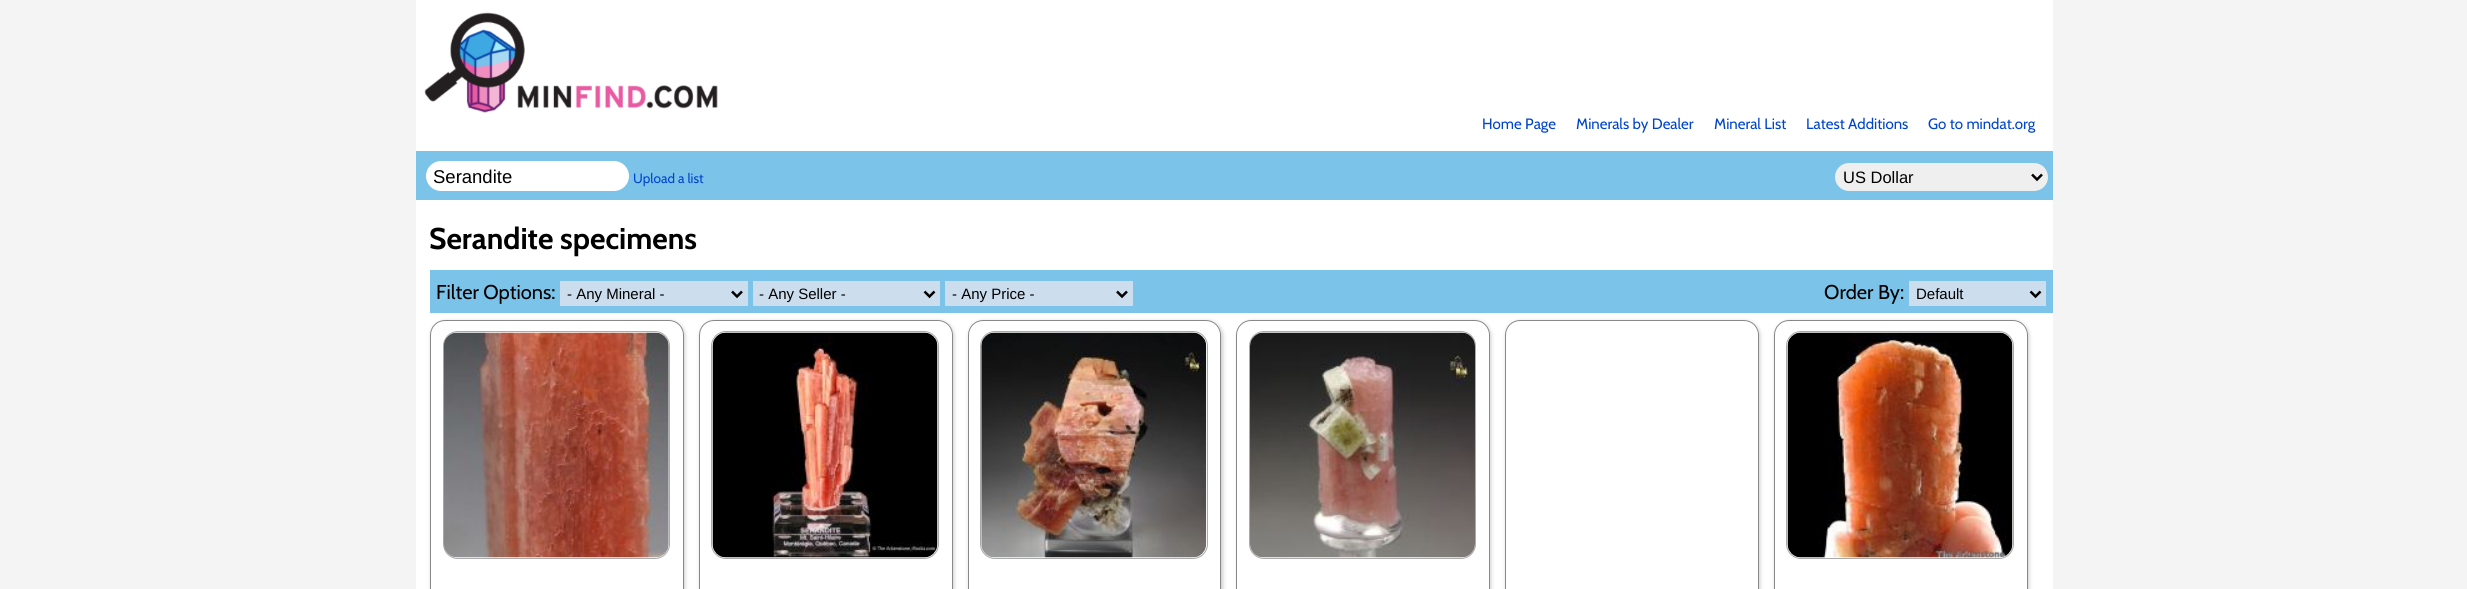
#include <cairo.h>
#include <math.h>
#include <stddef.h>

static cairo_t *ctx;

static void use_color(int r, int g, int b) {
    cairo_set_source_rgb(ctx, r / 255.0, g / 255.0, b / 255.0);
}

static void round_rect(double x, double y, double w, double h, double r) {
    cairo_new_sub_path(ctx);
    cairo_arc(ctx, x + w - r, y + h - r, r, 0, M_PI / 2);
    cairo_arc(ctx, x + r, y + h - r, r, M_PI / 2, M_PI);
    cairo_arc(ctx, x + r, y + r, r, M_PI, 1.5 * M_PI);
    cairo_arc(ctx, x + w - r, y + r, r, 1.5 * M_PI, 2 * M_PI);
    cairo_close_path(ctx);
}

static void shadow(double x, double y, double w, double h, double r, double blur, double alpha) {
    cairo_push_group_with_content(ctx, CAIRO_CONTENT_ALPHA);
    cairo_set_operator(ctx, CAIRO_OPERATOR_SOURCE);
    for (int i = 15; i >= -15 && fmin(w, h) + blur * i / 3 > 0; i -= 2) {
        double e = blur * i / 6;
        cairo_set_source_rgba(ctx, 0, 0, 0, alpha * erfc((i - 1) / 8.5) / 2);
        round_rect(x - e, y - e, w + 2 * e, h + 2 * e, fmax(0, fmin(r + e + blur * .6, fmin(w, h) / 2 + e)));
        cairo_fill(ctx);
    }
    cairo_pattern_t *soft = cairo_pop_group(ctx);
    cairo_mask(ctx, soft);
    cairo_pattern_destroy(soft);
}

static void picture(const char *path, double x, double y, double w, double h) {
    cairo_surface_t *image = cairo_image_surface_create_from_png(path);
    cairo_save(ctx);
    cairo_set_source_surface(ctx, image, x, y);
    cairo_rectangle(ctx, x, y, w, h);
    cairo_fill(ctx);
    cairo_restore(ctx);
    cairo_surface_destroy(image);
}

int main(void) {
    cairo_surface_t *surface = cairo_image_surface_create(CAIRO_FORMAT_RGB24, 2467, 589);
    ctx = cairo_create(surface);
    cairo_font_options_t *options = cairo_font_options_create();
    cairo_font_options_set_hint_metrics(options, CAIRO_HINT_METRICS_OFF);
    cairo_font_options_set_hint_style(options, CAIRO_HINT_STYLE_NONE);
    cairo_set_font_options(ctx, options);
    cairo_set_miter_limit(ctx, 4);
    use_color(244, 244, 244);
    cairo_paint(ctx);
    use_color(255, 255, 255);
    cairo_rectangle(ctx, 416, 0, 1637, 589);
    cairo_fill(ctx);
    picture("img1.png", 424, 12, 294, 101);
    cairo_select_font_face(ctx, "Cabin", CAIRO_FONT_SLANT_NORMAL, CAIRO_FONT_WEIGHT_NORMAL);
    cairo_set_font_size(ctx, 15);
    use_color(0, 68, 204);
    cairo_move_to(ctx, 1482, 129);
    cairo_show_text(ctx, "Home Page");
    cairo_move_to(ctx, 1576, 129);
    cairo_show_text(ctx, "Minerals by Dealer");
    cairo_move_to(ctx, 1714, 129);
    cairo_show_text(ctx, "Mineral List");
    cairo_move_to(ctx, 1806, 129);
    cairo_show_text(ctx, "Latest Additions");
    cairo_move_to(ctx, 1928, 129);
    cairo_show_text(ctx, "Go to mindat.org");
    use_color(123, 195, 233);
    cairo_rectangle(ctx, 416, 151, 1637, 49);
    cairo_fill(ctx);
    use_color(255, 255, 255);
    round_rect(426, 161, 203, 30, 15);
    cairo_fill(ctx);
    cairo_select_font_face(ctx, "Liberation Sans", CAIRO_FONT_SLANT_NORMAL, CAIRO_FONT_WEIGHT_NORMAL);
    cairo_set_font_size(ctx, 18.5);
    use_color(0, 0, 0);
    cairo_move_to(ctx, 433, 183);
    cairo_show_text(ctx, "Serandite");
    cairo_select_font_face(ctx, "Cabin", CAIRO_FONT_SLANT_NORMAL, CAIRO_FONT_WEIGHT_NORMAL);
    cairo_set_font_size(ctx, 13.5);
    use_color(0, 68, 204);
    cairo_move_to(ctx, 633, 183);
    cairo_show_text(ctx, "Upload a list");
    use_color(239, 239, 239);
    round_rect(1835, 163, 213, 28, 14);
    cairo_fill(ctx);
    cairo_new_path(ctx);
    cairo_move_to(ctx, 2032, 174.5);
    cairo_line_to(ctx, 2037, 179.5);
    cairo_line_to(ctx, 2042, 174.5);
    use_color(0, 0, 0);
    cairo_set_line_width(ctx, 2.5);
    cairo_stroke(ctx);
    cairo_select_font_face(ctx, "Liberation Sans", CAIRO_FONT_SLANT_NORMAL, CAIRO_FONT_WEIGHT_NORMAL);
    cairo_set_font_size(ctx, 16.5);
    cairo_move_to(ctx, 1843, 183);
    cairo_show_text(ctx, "US Dollar");
    cairo_select_font_face(ctx, "Cabin", CAIRO_FONT_SLANT_NORMAL, CAIRO_FONT_WEIGHT_BOLD);
    cairo_set_font_size(ctx, 30);
    cairo_move_to(ctx, 429, 249);
    cairo_show_text(ctx, "Serandite specimens");
    use_color(123, 195, 233);
    cairo_rectangle(ctx, 430, 270, 1623, 43);
    cairo_fill(ctx);
    cairo_select_font_face(ctx, "Cabin", CAIRO_FONT_SLANT_NORMAL, CAIRO_FONT_WEIGHT_NORMAL);
    cairo_set_font_size(ctx, 20);
    use_color(0, 0, 0);
    cairo_move_to(ctx, 436, 299);
    cairo_show_text(ctx, "Filter Options:");
    use_color(204, 221, 238);
    cairo_rectangle(ctx, 560, 281, 188, 25);
    cairo_fill(ctx);
    cairo_new_path(ctx);
    cairo_move_to(ctx, 732, 291.5);
    cairo_line_to(ctx, 737, 296.5);
    cairo_line_to(ctx, 742, 291.5);
    use_color(0, 0, 0);
    cairo_stroke(ctx);
    cairo_select_font_face(ctx, "Liberation Sans", CAIRO_FONT_SLANT_NORMAL, CAIRO_FONT_WEIGHT_NORMAL);
    cairo_set_font_size(ctx, 15);
    cairo_move_to(ctx, 567, 299);
    cairo_show_text(ctx, "- Any Mineral -");
    use_color(204, 221, 238);
    cairo_rectangle(ctx, 753, 281, 187, 25);
    cairo_fill(ctx);
    cairo_new_path(ctx);
    cairo_move_to(ctx, 924.5, 291.5);
    cairo_line_to(ctx, 929.5, 296.5);
    cairo_line_to(ctx, 934.5, 291.5);
    use_color(0, 0, 0);
    cairo_stroke(ctx);
    cairo_move_to(ctx, 759, 299);
    cairo_show_text(ctx, "- Any Seller -");
    use_color(204, 221, 238);
    cairo_rectangle(ctx, 945, 281, 188, 25);
    cairo_fill(ctx);
    cairo_new_path(ctx);
    cairo_move_to(ctx, 1117, 291.5);
    cairo_line_to(ctx, 1122, 296.5);
    cairo_line_to(ctx, 1127, 291.5);
    use_color(0, 0, 0);
    cairo_stroke(ctx);
    cairo_move_to(ctx, 952, 299);
    cairo_show_text(ctx, "- Any Price -");
    cairo_select_font_face(ctx, "Cabin", CAIRO_FONT_SLANT_NORMAL, CAIRO_FONT_WEIGHT_NORMAL);
    cairo_set_font_size(ctx, 20);
    cairo_move_to(ctx, 1824, 299);
    cairo_show_text(ctx, "Order By:");
    use_color(204, 221, 238);
    cairo_rectangle(ctx, 1909, 281, 137, 25);
    cairo_fill(ctx);
    cairo_new_path(ctx);
    cairo_move_to(ctx, 2030.5, 291.5);
    cairo_line_to(ctx, 2035.5, 296.5);
    cairo_line_to(ctx, 2040.5, 291.5);
    use_color(0, 0, 0);
    cairo_stroke(ctx);
    cairo_select_font_face(ctx, "Liberation Sans", CAIRO_FONT_SLANT_NORMAL, CAIRO_FONT_WEIGHT_NORMAL);
    cairo_set_font_size(ctx, 15);
    cairo_move_to(ctx, 1916, 299);
    cairo_show_text(ctx, "Default");
    cairo_save(ctx);
    cairo_set_fill_rule(ctx, CAIRO_FILL_RULE_EVEN_ODD);
    cairo_new_path(ctx);
    cairo_move_to(ctx, 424, 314);
    cairo_line_to(ctx, 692, 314);
    cairo_line_to(ctx, 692, 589);
    cairo_line_to(ctx, 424, 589);
    cairo_close_path(ctx);
    cairo_move_to(ctx, 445, 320);
    cairo_line_to(ctx, 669, 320);
    cairo_curve_to(ctx, 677.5, 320, 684, 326.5, 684, 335);
    cairo_line_to(ctx, 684, 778);
    cairo_curve_to(ctx, 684, 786.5, 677.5, 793, 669, 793);
    cairo_line_to(ctx, 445, 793);
    cairo_curve_to(ctx, 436.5, 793, 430, 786.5, 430, 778);
    cairo_line_to(ctx, 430, 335);
    cairo_curve_to(ctx, 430, 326.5, 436.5, 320, 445, 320);
    cairo_close_path(ctx);
    cairo_clip(ctx);
    use_color(204, 204, 204);
    shadow(431, 321, 254, 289, 15, 2, 1);
    cairo_restore(ctx);
    round_rect(430.5, 320.5, 253, 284, 14.5);
    use_color(136, 136, 136);
    cairo_set_line_width(ctx, 1);
    cairo_stroke(ctx);
    round_rect(443.5, 331.5, 226, 227, 14.5);
    use_color(170, 170, 170);
    cairo_stroke(ctx);
    picture("img2.png", 443, 332, 226, 226);
    cairo_save(ctx);
    cairo_set_fill_rule(ctx, CAIRO_FILL_RULE_EVEN_ODD);
    cairo_new_path(ctx);
    cairo_move_to(ctx, 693, 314);
    cairo_line_to(ctx, 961, 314);
    cairo_line_to(ctx, 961, 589);
    cairo_line_to(ctx, 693, 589);
    cairo_close_path(ctx);
    cairo_move_to(ctx, 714, 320);
    cairo_line_to(ctx, 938, 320);
    cairo_curve_to(ctx, 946.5, 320, 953, 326.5, 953, 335);
    cairo_line_to(ctx, 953, 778);
    cairo_curve_to(ctx, 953, 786.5, 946.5, 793, 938, 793);
    cairo_line_to(ctx, 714, 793);
    cairo_curve_to(ctx, 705.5, 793, 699, 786.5, 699, 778);
    cairo_line_to(ctx, 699, 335);
    cairo_curve_to(ctx, 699, 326.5, 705.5, 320, 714, 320);
    cairo_close_path(ctx);
    cairo_clip(ctx);
    use_color(204, 204, 204);
    shadow(700, 321, 254, 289, 15, 2, 1);
    cairo_restore(ctx);
    round_rect(699.5, 320.5, 253, 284, 14.5);
    use_color(136, 136, 136);
    cairo_stroke(ctx);
    round_rect(711.5, 331.5, 227, 227, 14.5);
    use_color(170, 170, 170);
    cairo_stroke(ctx);
    picture("img3.png", 712, 332, 226, 226);
    cairo_save(ctx);
    cairo_set_fill_rule(ctx, CAIRO_FILL_RULE_EVEN_ODD);
    cairo_new_path(ctx);
    cairo_move_to(ctx, 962, 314);
    cairo_line_to(ctx, 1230, 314);
    cairo_line_to(ctx, 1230, 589);
    cairo_line_to(ctx, 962, 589);
    cairo_close_path(ctx);
    cairo_move_to(ctx, 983, 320);
    cairo_line_to(ctx, 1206, 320);
    cairo_curve_to(ctx, 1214.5, 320, 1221, 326.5, 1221, 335);
    cairo_line_to(ctx, 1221, 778);
    cairo_curve_to(ctx, 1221, 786.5, 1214.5, 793, 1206, 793);
    cairo_line_to(ctx, 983, 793);
    cairo_curve_to(ctx, 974.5, 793, 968, 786.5, 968, 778);
    cairo_line_to(ctx, 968, 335);
    cairo_curve_to(ctx, 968, 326.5, 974.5, 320, 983, 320);
    cairo_close_path(ctx);
    cairo_clip(ctx);
    use_color(204, 204, 204);
    shadow(969, 321, 254, 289, 15, 2, 1);
    cairo_restore(ctx);
    round_rect(968.5, 320.5, 252, 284, 14.5);
    use_color(136, 136, 136);
    cairo_stroke(ctx);
    round_rect(980.5, 331.5, 227, 227, 14.5);
    use_color(170, 170, 170);
    cairo_stroke(ctx);
    picture("img4.png", 981, 332, 226, 226);
    cairo_save(ctx);
    cairo_set_fill_rule(ctx, CAIRO_FILL_RULE_EVEN_ODD);
    cairo_new_path(ctx);
    cairo_move_to(ctx, 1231, 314);
    cairo_line_to(ctx, 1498, 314);
    cairo_line_to(ctx, 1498, 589);
    cairo_line_to(ctx, 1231, 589);
    cairo_close_path(ctx);
    cairo_move_to(ctx, 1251, 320);
    cairo_line_to(ctx, 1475, 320);
    cairo_curve_to(ctx, 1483.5, 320, 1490, 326.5, 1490, 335);
    cairo_line_to(ctx, 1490, 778);
    cairo_curve_to(ctx, 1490, 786.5, 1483.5, 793, 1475, 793);
    cairo_line_to(ctx, 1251, 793);
    cairo_curve_to(ctx, 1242.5, 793, 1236, 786.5, 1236, 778);
    cairo_line_to(ctx, 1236, 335);
    cairo_curve_to(ctx, 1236, 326.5, 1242.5, 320, 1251, 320);
    cairo_close_path(ctx);
    cairo_clip(ctx);
    use_color(204, 204, 204);
    shadow(1238, 321, 253, 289, 15, 2, 1);
    cairo_restore(ctx);
    round_rect(1236.5, 320.5, 253, 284, 14.5);
    use_color(136, 136, 136);
    cairo_stroke(ctx);
    round_rect(1249.5, 331.5, 226, 227, 14.5);
    use_color(170, 170, 170);
    cairo_stroke(ctx);
    picture("img5.png", 1250, 332, 225, 226);
    cairo_save(ctx);
    cairo_set_fill_rule(ctx, CAIRO_FILL_RULE_EVEN_ODD);
    cairo_new_path(ctx);
    cairo_move_to(ctx, 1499, 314);
    cairo_line_to(ctx, 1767, 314);
    cairo_line_to(ctx, 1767, 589);
    cairo_line_to(ctx, 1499, 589);
    cairo_close_path(ctx);
    cairo_move_to(ctx, 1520, 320);
    cairo_line_to(ctx, 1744, 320);
    cairo_curve_to(ctx, 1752.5, 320, 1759, 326.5, 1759, 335);
    cairo_line_to(ctx, 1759, 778);
    cairo_curve_to(ctx, 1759, 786.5, 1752.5, 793, 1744, 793);
    cairo_line_to(ctx, 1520, 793);
    cairo_curve_to(ctx, 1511.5, 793, 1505, 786.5, 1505, 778);
    cairo_line_to(ctx, 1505, 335);
    cairo_curve_to(ctx, 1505, 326.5, 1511.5, 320, 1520, 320);
    cairo_close_path(ctx);
    cairo_clip(ctx);
    use_color(204, 204, 204);
    shadow(1506, 321, 254, 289, 15, 2, 1);
    cairo_restore(ctx);
    round_rect(1505.5, 320.5, 253, 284, 14.5);
    use_color(136, 136, 136);
    cairo_stroke(ctx);
    cairo_save(ctx);
    cairo_set_fill_rule(ctx, CAIRO_FILL_RULE_EVEN_ODD);
    cairo_new_path(ctx);
    cairo_move_to(ctx, 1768, 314);
    cairo_line_to(ctx, 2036, 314);
    cairo_line_to(ctx, 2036, 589);
    cairo_line_to(ctx, 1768, 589);
    cairo_close_path(ctx);
    cairo_move_to(ctx, 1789, 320);
    cairo_line_to(ctx, 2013, 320);
    cairo_curve_to(ctx, 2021.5, 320, 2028, 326.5, 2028, 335);
    cairo_line_to(ctx, 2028, 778);
    cairo_curve_to(ctx, 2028, 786.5, 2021.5, 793, 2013, 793);
    cairo_line_to(ctx, 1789, 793);
    cairo_curve_to(ctx, 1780.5, 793, 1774, 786.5, 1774, 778);
    cairo_line_to(ctx, 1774, 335);
    cairo_curve_to(ctx, 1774, 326.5, 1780.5, 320, 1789, 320);
    cairo_close_path(ctx);
    cairo_clip(ctx);
    use_color(204, 204, 204);
    shadow(1775, 321, 254, 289, 15, 2, 1);
    cairo_restore(ctx);
    round_rect(1774.5, 320.5, 253, 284, 14.5);
    cairo_stroke(ctx);
    round_rect(1786.5, 331.5, 227, 227, 14.5);
    use_color(170, 170, 170);
    cairo_stroke(ctx);
    picture("img6.png", 1787, 332, 226, 226);
    cairo_surface_write_to_png(surface, "result.png");
    cairo_font_options_destroy(options);
    cairo_destroy(ctx);
    cairo_surface_destroy(surface);
    return 0;
}
